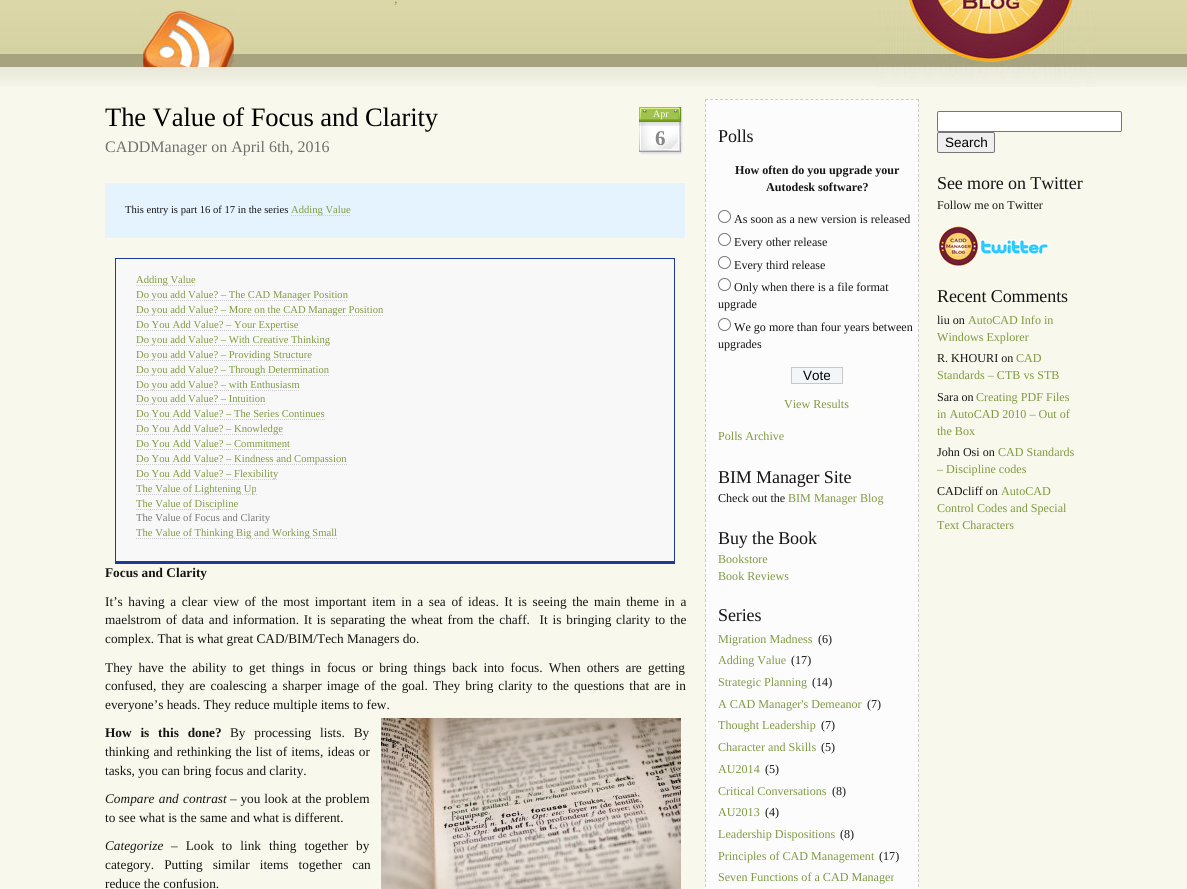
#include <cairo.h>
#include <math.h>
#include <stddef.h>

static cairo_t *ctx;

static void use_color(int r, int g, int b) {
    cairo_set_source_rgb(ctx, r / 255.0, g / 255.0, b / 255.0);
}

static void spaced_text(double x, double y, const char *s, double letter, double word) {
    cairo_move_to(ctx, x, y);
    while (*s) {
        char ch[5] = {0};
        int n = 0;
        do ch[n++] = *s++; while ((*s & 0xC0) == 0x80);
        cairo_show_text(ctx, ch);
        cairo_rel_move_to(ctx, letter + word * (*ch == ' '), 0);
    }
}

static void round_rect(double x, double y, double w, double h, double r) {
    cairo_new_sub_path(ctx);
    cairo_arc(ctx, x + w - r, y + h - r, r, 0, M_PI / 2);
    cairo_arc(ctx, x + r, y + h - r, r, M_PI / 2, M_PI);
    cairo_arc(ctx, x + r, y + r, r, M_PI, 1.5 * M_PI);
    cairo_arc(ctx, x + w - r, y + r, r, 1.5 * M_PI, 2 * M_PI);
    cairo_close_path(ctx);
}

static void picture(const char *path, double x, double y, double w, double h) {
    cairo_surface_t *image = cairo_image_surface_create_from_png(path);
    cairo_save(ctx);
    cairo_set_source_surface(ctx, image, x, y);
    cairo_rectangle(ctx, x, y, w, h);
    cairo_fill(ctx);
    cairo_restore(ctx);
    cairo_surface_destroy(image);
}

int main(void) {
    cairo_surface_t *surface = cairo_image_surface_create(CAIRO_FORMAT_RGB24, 1187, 889);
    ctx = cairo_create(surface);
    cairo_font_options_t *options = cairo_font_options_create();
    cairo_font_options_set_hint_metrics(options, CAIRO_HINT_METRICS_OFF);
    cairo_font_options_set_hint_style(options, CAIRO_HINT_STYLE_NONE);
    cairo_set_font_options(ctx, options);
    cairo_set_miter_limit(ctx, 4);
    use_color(248, 248, 236);
    cairo_paint(ctx);
    picture("img1.png", 0, 0, 1187, 86);
    cairo_select_font_face(ctx, "Liberation Serif", CAIRO_FONT_SLANT_ITALIC, CAIRO_FONT_WEIGHT_NORMAL);
    cairo_set_font_size(ctx, 14);
    use_color(127, 154, 66);
    cairo_move_to(ctx, 394, 3);
    cairo_show_text(ctx, ",");
    picture("img2.png", 877, 0, 219, 87);
    picture("img3.png", 140, 8, 96, 59);
    cairo_select_font_face(ctx, "Liberation Serif", CAIRO_FONT_SLANT_NORMAL, CAIRO_FONT_WEIGHT_NORMAL);
    cairo_set_font_size(ctx, 26.6);
    use_color(0, 0, 0);
    spaced_text(105, 126, "The Value of Focus and Clarity", -0.1, 0);
    picture("img4.png", 639, 107, 44, 48);
    cairo_set_font_size(ctx, 10);
    use_color(255, 255, 255);
    cairo_move_to(ctx, 653, 117);
    cairo_show_text(ctx, "Apr");
    cairo_select_font_face(ctx, "Liberation Serif", CAIRO_FONT_SLANT_NORMAL, CAIRO_FONT_WEIGHT_BOLD);
    cairo_set_font_size(ctx, 21);
    use_color(136, 136, 136);
    cairo_move_to(ctx, 655, 145);
    cairo_show_text(ctx, "6");
    cairo_select_font_face(ctx, "Liberation Serif", CAIRO_FONT_SLANT_NORMAL, CAIRO_FONT_WEIGHT_NORMAL);
    cairo_set_font_size(ctx, 16);
    use_color(111, 111, 111);
    cairo_move_to(ctx, 105, 152);
    cairo_show_text(ctx, "CADDManager on April 6th, 2016");
    use_color(229, 243, 255);
    cairo_rectangle(ctx, 105, 183, 580, 55);
    cairo_fill(ctx);
    cairo_set_font_size(ctx, 10.6);
    use_color(21, 21, 21);
    cairo_move_to(ctx, 125, 213);
    cairo_show_text(ctx, "This entry is part 16 of 17 in the series");
    cairo_new_path(ctx);
    cairo_move_to(ctx, 291, 215.5);
    cairo_line_to(ctx, 351, 215.5);
    use_color(204, 204, 204);
    cairo_set_line_width(ctx, 1);
    cairo_set_dash(ctx, (double[]){1, 1}, 2, 0);
    cairo_stroke(ctx);
    use_color(127, 154, 66);
    cairo_move_to(ctx, 291, 213);
    cairo_show_text(ctx, "Adding Value");
    use_color(248, 248, 248);
    cairo_rectangle(ctx, 116, 259, 558, 302);
    cairo_fill(ctx);
    use_color(30, 58, 150);
    cairo_rectangle(ctx, 115, 258, 560, 1);
    cairo_fill(ctx);
    cairo_rectangle(ctx, 674, 258, 1, 306);
    cairo_fill(ctx);
    cairo_rectangle(ctx, 115, 561, 560, 3);
    cairo_fill(ctx);
    cairo_rectangle(ctx, 115, 258, 1, 306);
    cairo_fill(ctx);
    cairo_new_path(ctx);
    cairo_move_to(ctx, 136, 285.5);
    cairo_line_to(ctx, 196, 285.5);
    use_color(204, 204, 204);
    cairo_stroke(ctx);
    use_color(127, 154, 66);
    cairo_move_to(ctx, 136, 283);
    cairo_show_text(ctx, "Adding Value");
    cairo_new_path(ctx);
    cairo_move_to(ctx, 136, 300.5);
    cairo_line_to(ctx, 348, 300.5);
    use_color(204, 204, 204);
    cairo_stroke(ctx);
    use_color(127, 154, 66);
    cairo_move_to(ctx, 136, 298);
    cairo_show_text(ctx, "Do you add Value? – The CAD Manager Position");
    cairo_new_path(ctx);
    cairo_move_to(ctx, 136, 315.5);
    cairo_line_to(ctx, 384, 315.5);
    use_color(204, 204, 204);
    cairo_stroke(ctx);
    use_color(127, 154, 66);
    cairo_move_to(ctx, 136, 313);
    cairo_show_text(ctx, "Do you add Value? – More on the CAD Manager Position");
    cairo_new_path(ctx);
    cairo_move_to(ctx, 136, 330.5);
    cairo_line_to(ctx, 299, 330.5);
    use_color(204, 204, 204);
    cairo_stroke(ctx);
    use_color(127, 154, 66);
    cairo_move_to(ctx, 136, 328);
    cairo_show_text(ctx, "Do You Add Value? – Your Expertise");
    cairo_new_path(ctx);
    cairo_move_to(ctx, 136, 345.5);
    cairo_line_to(ctx, 330, 345.5);
    use_color(204, 204, 204);
    cairo_stroke(ctx);
    use_color(127, 154, 66);
    cairo_move_to(ctx, 136, 343);
    cairo_show_text(ctx, "Do you add Value? – With Creative Thinking");
    cairo_new_path(ctx);
    cairo_move_to(ctx, 136, 360.5);
    cairo_line_to(ctx, 312, 360.5);
    use_color(204, 204, 204);
    cairo_stroke(ctx);
    use_color(127, 154, 66);
    cairo_move_to(ctx, 136, 358);
    cairo_show_text(ctx, "Do you add Value? – Providing Structure");
    cairo_new_path(ctx);
    cairo_move_to(ctx, 136, 375.5);
    cairo_line_to(ctx, 329, 375.5);
    use_color(204, 204, 204);
    cairo_stroke(ctx);
    use_color(127, 154, 66);
    cairo_move_to(ctx, 136, 373);
    cairo_show_text(ctx, "Do you add Value? – Through Determination");
    cairo_new_path(ctx);
    cairo_move_to(ctx, 136, 390.5);
    cairo_line_to(ctx, 300, 390.5);
    use_color(204, 204, 204);
    cairo_stroke(ctx);
    use_color(127, 154, 66);
    cairo_move_to(ctx, 136, 388);
    cairo_show_text(ctx, "Do you add Value? – with Enthusiasm");
    cairo_new_path(ctx);
    cairo_move_to(ctx, 136, 404.5);
    cairo_line_to(ctx, 265, 404.5);
    use_color(204, 204, 204);
    cairo_stroke(ctx);
    use_color(127, 154, 66);
    cairo_move_to(ctx, 136, 402);
    cairo_show_text(ctx, "Do you add Value? – Intuition");
    cairo_move_to(ctx, 136, 417);
    cairo_show_text(ctx, "Do You Add Value? – The Series Continues");
    cairo_new_path(ctx);
    cairo_move_to(ctx, 136, 419.5);
    cairo_line_to(ctx, 325, 419.5);
    use_color(204, 204, 204);
    cairo_stroke(ctx);
    cairo_new_path(ctx);
    cairo_move_to(ctx, 136, 434.5);
    cairo_line_to(ctx, 283, 434.5);
    cairo_stroke(ctx);
    use_color(127, 154, 66);
    cairo_move_to(ctx, 136, 432);
    cairo_show_text(ctx, "Do You Add Value? – Knowledge");
    cairo_move_to(ctx, 136, 447);
    cairo_show_text(ctx, "Do You Add Value? – Commitment");
    cairo_new_path(ctx);
    cairo_move_to(ctx, 136, 449.5);
    cairo_line_to(ctx, 290, 449.5);
    use_color(204, 204, 204);
    cairo_stroke(ctx);
    cairo_new_path(ctx);
    cairo_move_to(ctx, 136, 464.5);
    cairo_line_to(ctx, 347, 464.5);
    cairo_stroke(ctx);
    use_color(127, 154, 66);
    cairo_move_to(ctx, 136, 462);
    cairo_show_text(ctx, "Do You Add Value? – Kindness and Compassion");
    cairo_new_path(ctx);
    cairo_move_to(ctx, 136, 479.5);
    cairo_line_to(ctx, 278, 479.5);
    use_color(204, 204, 204);
    cairo_stroke(ctx);
    use_color(127, 154, 66);
    cairo_move_to(ctx, 136, 477);
    cairo_show_text(ctx, "Do You Add Value? – Flexibility");
    cairo_new_path(ctx);
    cairo_move_to(ctx, 136, 494.5);
    cairo_line_to(ctx, 257, 494.5);
    use_color(204, 204, 204);
    cairo_stroke(ctx);
    use_color(127, 154, 66);
    cairo_move_to(ctx, 136, 492);
    cairo_show_text(ctx, "The Value of Lightening Up");
    cairo_new_path(ctx);
    cairo_move_to(ctx, 136, 509.5);
    cairo_line_to(ctx, 238, 509.5);
    use_color(204, 204, 204);
    cairo_stroke(ctx);
    use_color(127, 154, 66);
    cairo_move_to(ctx, 136, 507);
    cairo_show_text(ctx, "The Value of Discipline");
    use_color(119, 119, 119);
    cairo_move_to(ctx, 136, 521);
    cairo_show_text(ctx, "The Value of Focus and Clarity");
    cairo_new_path(ctx);
    cairo_move_to(ctx, 136, 538.5);
    cairo_line_to(ctx, 337, 538.5);
    use_color(204, 204, 204);
    cairo_stroke(ctx);
    use_color(127, 154, 66);
    cairo_move_to(ctx, 136, 536);
    cairo_show_text(ctx, "The Value of Thinking Big and Working Small");
    cairo_select_font_face(ctx, "Liberation Serif", CAIRO_FONT_SLANT_NORMAL, CAIRO_FONT_WEIGHT_BOLD);
    cairo_set_font_size(ctx, 13.3);
    use_color(21, 21, 21);
    cairo_move_to(ctx, 105, 577);
    cairo_show_text(ctx, "Focus and Clarity");
    cairo_select_font_face(ctx, "Liberation Serif", CAIRO_FONT_SLANT_NORMAL, CAIRO_FONT_WEIGHT_NORMAL);
    spaced_text(105, 606, "It’s having a clear view of the most important item in a sea of ideas. It is seeing the main theme in a", 0, 2.3);
    spaced_text(105, 624, "maelstrom of data and information. It is separating the wheat from the chaff.  It is bringing clarity to the", 0, 1.5);
    cairo_move_to(ctx, 105, 643);
    cairo_show_text(ctx, "complex. That is what great CAD/BIM/Tech Managers do.");
    spaced_text(105, 672, "They have the ability to get things in focus or bring things back into focus. When others are getting", 0, 2.9);
    spaced_text(105, 690, "confused, they are coalescing a sharper image of the goal. They bring clarity to the questions that are in", 0, 1.7);
    cairo_move_to(ctx, 105, 709);
    cairo_show_text(ctx, "everyone’s heads. They reduce multiple items to few.");
    picture("img5.png", 381, 718, 300, 171);
    cairo_select_font_face(ctx, "Liberation Serif", CAIRO_FONT_SLANT_NORMAL, CAIRO_FONT_WEIGHT_BOLD);
    spaced_text(105, 737, "How is this done?", 0, 5.5);
    cairo_select_font_face(ctx, "Liberation Serif", CAIRO_FONT_SLANT_NORMAL, CAIRO_FONT_WEIGHT_NORMAL);
    spaced_text(230, 737, "By processing lists. By", 0, 5.5);
    spaced_text(105, 756, "thinking and rethinking the list of items, ideas or", 0, 0.75);
    cairo_move_to(ctx, 105, 775);
    cairo_show_text(ctx, "tasks, you can bring focus and clarity.");
    cairo_select_font_face(ctx, "Liberation Serif", CAIRO_FONT_SLANT_ITALIC, CAIRO_FONT_WEIGHT_NORMAL);
    spaced_text(105, 803, "Compare and contrast", 0, 1);
    cairo_select_font_face(ctx, "Liberation Serif", CAIRO_FONT_SLANT_NORMAL, CAIRO_FONT_WEIGHT_NORMAL);
    spaced_text(230, 803, "– you look at the problem", 0, 0.5);
    cairo_move_to(ctx, 105, 822);
    cairo_show_text(ctx, "to see what is the same and what is different.");
    cairo_select_font_face(ctx, "Liberation Serif", CAIRO_FONT_SLANT_ITALIC, CAIRO_FONT_WEIGHT_NORMAL);
    cairo_move_to(ctx, 105, 850);
    cairo_show_text(ctx, "Categorize");
    cairo_select_font_face(ctx, "Liberation Serif", CAIRO_FONT_SLANT_NORMAL, CAIRO_FONT_WEIGHT_NORMAL);
    spaced_text(171, 850, "– Look to link thing together by", 0, 4.75);
    spaced_text(105, 869, "category. Putting similar items together can", 0, 6.75);
    cairo_move_to(ctx, 105, 888);
    cairo_show_text(ctx, "reduce the confusion.");
    use_color(252, 252, 252);
    cairo_rectangle(ctx, 705, 99, 214, 790);
    cairo_fill(ctx);
    cairo_new_path(ctx);
    cairo_move_to(ctx, 705, 99.5);
    cairo_line_to(ctx, 919, 99.5);
    use_color(204, 204, 204);
    cairo_set_dash(ctx, (double[]){3, 2.02}, 2, 0);
    cairo_stroke(ctx);
    cairo_new_path(ctx);
    cairo_move_to(ctx, 918.5, 99);
    cairo_line_to(ctx, 918.5, 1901);
    cairo_set_dash(ctx, (double[]){3, 2}, 2, 0);
    cairo_stroke(ctx);
    cairo_new_path(ctx);
    cairo_move_to(ctx, 705.5, 99);
    cairo_line_to(ctx, 705.5, 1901);
    cairo_stroke(ctx);
    cairo_set_font_size(ctx, 18);
    use_color(21, 21, 21);
    spaced_text(718, 142, "Polls", -0.1, 0);
    cairo_select_font_face(ctx, "Liberation Serif", CAIRO_FONT_SLANT_NORMAL, CAIRO_FONT_WEIGHT_BOLD);
    cairo_set_font_size(ctx, 12.1);
    cairo_move_to(ctx, 735, 174);
    cairo_show_text(ctx, "How often do you upgrade your");
    cairo_move_to(ctx, 766, 191);
    cairo_show_text(ctx, "Autodesk software?");
    use_color(255, 255, 255);
    cairo_new_path(ctx);
    cairo_arc(ctx, 724.5, 216.5, 6, 0, 2 * M_PI);
    cairo_fill_preserve(ctx);
    use_color(118, 118, 118);
    cairo_set_dash(ctx, NULL, 0, 0);
    cairo_stroke(ctx);
    cairo_select_font_face(ctx, "Liberation Serif", CAIRO_FONT_SLANT_NORMAL, CAIRO_FONT_WEIGHT_NORMAL);
    use_color(21, 21, 21);
    cairo_move_to(ctx, 734, 223);
    cairo_show_text(ctx, "As soon as a new version is released");
    use_color(255, 255, 255);
    cairo_new_path(ctx);
    cairo_arc(ctx, 724.5, 239.5, 6, 0, 2 * M_PI);
    cairo_fill_preserve(ctx);
    use_color(118, 118, 118);
    cairo_stroke(ctx);
    use_color(21, 21, 21);
    cairo_move_to(ctx, 734, 246);
    cairo_show_text(ctx, "Every other release");
    use_color(255, 255, 255);
    cairo_new_path(ctx);
    cairo_arc(ctx, 724.5, 262.5, 6, 0, 2 * M_PI);
    cairo_fill_preserve(ctx);
    use_color(118, 118, 118);
    cairo_stroke(ctx);
    use_color(21, 21, 21);
    cairo_move_to(ctx, 734, 269);
    cairo_show_text(ctx, "Every third release");
    use_color(255, 255, 255);
    cairo_new_path(ctx);
    cairo_arc(ctx, 724.5, 284.5, 6, 0, 2 * M_PI);
    cairo_fill_preserve(ctx);
    use_color(118, 118, 118);
    cairo_stroke(ctx);
    use_color(21, 21, 21);
    cairo_move_to(ctx, 734, 291);
    cairo_show_text(ctx, "Only when there is a file format");
    cairo_move_to(ctx, 718, 308);
    cairo_show_text(ctx, "upgrade");
    use_color(255, 255, 255);
    cairo_new_path(ctx);
    cairo_arc(ctx, 724.5, 324.5, 6, 0, 2 * M_PI);
    cairo_fill_preserve(ctx);
    use_color(118, 118, 118);
    cairo_stroke(ctx);
    use_color(21, 21, 21);
    cairo_move_to(ctx, 734, 331);
    cairo_show_text(ctx, "We go more than four years between");
    cairo_move_to(ctx, 718, 348);
    cairo_show_text(ctx, "upgrades");
    use_color(243, 246, 248);
    cairo_rectangle(ctx, 791.5, 367.5, 51, 16);
    cairo_fill_preserve(ctx);
    use_color(200, 200, 200);
    cairo_stroke(ctx);
    cairo_select_font_face(ctx, "Liberation Sans", CAIRO_FONT_SLANT_NORMAL, CAIRO_FONT_WEIGHT_NORMAL);
    cairo_set_font_size(ctx, 13.5);
    use_color(0, 0, 0);
    cairo_move_to(ctx, 803, 380);
    cairo_show_text(ctx, "Vote");
    cairo_select_font_face(ctx, "Liberation Serif", CAIRO_FONT_SLANT_NORMAL, CAIRO_FONT_WEIGHT_NORMAL);
    cairo_set_font_size(ctx, 12.1);
    use_color(127, 154, 66);
    cairo_move_to(ctx, 784, 408);
    cairo_show_text(ctx, "View Results");
    cairo_move_to(ctx, 718, 440);
    cairo_show_text(ctx, "Polls Archive");
    cairo_set_font_size(ctx, 18);
    use_color(21, 21, 21);
    spaced_text(718, 483, "BIM Manager Site", -0.1, 0);
    cairo_set_font_size(ctx, 12.1);
    cairo_move_to(ctx, 718, 502);
    cairo_show_text(ctx, "Check out the");
    use_color(127, 154, 66);
    cairo_move_to(ctx, 788, 502);
    cairo_show_text(ctx, "BIM Manager Blog");
    cairo_set_font_size(ctx, 18);
    use_color(21, 21, 21);
    spaced_text(718, 544, "Buy the Book", -0.1, 0);
    cairo_set_font_size(ctx, 12.1);
    use_color(127, 154, 66);
    cairo_move_to(ctx, 718, 563);
    cairo_show_text(ctx, "Bookstore");
    cairo_move_to(ctx, 718, 580);
    cairo_show_text(ctx, "Book Reviews");
    cairo_set_font_size(ctx, 18);
    use_color(21, 21, 21);
    spaced_text(718, 621, "Series", -0.1, 0);
    cairo_set_font_size(ctx, 12.1);
    use_color(127, 154, 66);
    cairo_move_to(ctx, 718, 643);
    cairo_show_text(ctx, "Migration Madness");
    use_color(21, 21, 21);
    cairo_move_to(ctx, 818, 643);
    cairo_show_text(ctx, "(6)");
    use_color(127, 154, 66);
    cairo_move_to(ctx, 718, 664);
    cairo_show_text(ctx, "Adding Value");
    use_color(21, 21, 21);
    cairo_move_to(ctx, 791, 664);
    cairo_show_text(ctx, "(17)");
    use_color(127, 154, 66);
    cairo_move_to(ctx, 718, 686);
    cairo_show_text(ctx, "Strategic Planning");
    use_color(21, 21, 21);
    cairo_move_to(ctx, 812, 686);
    cairo_show_text(ctx, "(14)");
    use_color(127, 154, 66);
    cairo_move_to(ctx, 718, 708);
    cairo_show_text(ctx, "A CAD Manager's Demeanor");
    use_color(21, 21, 21);
    cairo_move_to(ctx, 867, 708);
    cairo_show_text(ctx, "(7)");
    use_color(127, 154, 66);
    cairo_move_to(ctx, 718, 729);
    cairo_show_text(ctx, "Thought Leadership");
    use_color(21, 21, 21);
    cairo_move_to(ctx, 821, 729);
    cairo_show_text(ctx, "(7)");
    use_color(127, 154, 66);
    cairo_move_to(ctx, 718, 751);
    cairo_show_text(ctx, "Character and Skills");
    use_color(21, 21, 21);
    cairo_move_to(ctx, 821, 751);
    cairo_show_text(ctx, "(5)");
    use_color(127, 154, 66);
    cairo_move_to(ctx, 718, 773);
    cairo_show_text(ctx, "AU2014");
    use_color(21, 21, 21);
    cairo_move_to(ctx, 765, 773);
    cairo_show_text(ctx, "(5)");
    use_color(127, 154, 66);
    cairo_move_to(ctx, 718, 795);
    cairo_show_text(ctx, "Critical Conversations");
    use_color(21, 21, 21);
    cairo_move_to(ctx, 832, 795);
    cairo_show_text(ctx, "(8)");
    use_color(127, 154, 66);
    cairo_move_to(ctx, 718, 816);
    cairo_show_text(ctx, "AU2013");
    use_color(21, 21, 21);
    cairo_move_to(ctx, 765, 816);
    cairo_show_text(ctx, "(4)");
    use_color(127, 154, 66);
    cairo_move_to(ctx, 718, 838);
    cairo_show_text(ctx, "Leadership Dispositions");
    use_color(21, 21, 21);
    cairo_move_to(ctx, 840, 838);
    cairo_show_text(ctx, "(8)");
    use_color(127, 154, 66);
    cairo_move_to(ctx, 718, 860);
    cairo_show_text(ctx, "Principles of CAD Management");
    use_color(21, 21, 21);
    cairo_move_to(ctx, 879, 860);
    cairo_show_text(ctx, "(17)");
    use_color(127, 154, 66);
    cairo_move_to(ctx, 718, 881);
    cairo_show_text(ctx, "Seven Functions of a CAD Manager");
    use_color(255, 255, 255);
    round_rect(937.5, 111.5, 184, 20, 1.5);
    cairo_fill_preserve(ctx);
    use_color(118, 118, 118);
    cairo_stroke(ctx);
    use_color(239, 239, 239);
    round_rect(937.5, 132.5, 57, 20, 1.5);
    cairo_fill_preserve(ctx);
    use_color(118, 118, 118);
    cairo_stroke(ctx);
    cairo_select_font_face(ctx, "Liberation Sans", CAIRO_FONT_SLANT_NORMAL, CAIRO_FONT_WEIGHT_NORMAL);
    cairo_set_font_size(ctx, 13.5);
    use_color(0, 0, 0);
    cairo_move_to(ctx, 945, 147);
    cairo_show_text(ctx, "Search");
    cairo_select_font_face(ctx, "Liberation Serif", CAIRO_FONT_SLANT_NORMAL, CAIRO_FONT_WEIGHT_NORMAL);
    cairo_set_font_size(ctx, 18);
    use_color(21, 21, 21);
    spaced_text(937, 189, "See more on Twitter", -0.1, 0);
    cairo_set_font_size(ctx, 12.1);
    cairo_move_to(ctx, 937, 209);
    cairo_show_text(ctx, "Follow me on Twitter");
    picture("img6.png", 939, 226, 110, 40);
    cairo_set_font_size(ctx, 18);
    spaced_text(937, 302, "Recent Comments", -0.1, 0);
    cairo_set_font_size(ctx, 12.1);
    cairo_move_to(ctx, 937, 324);
    cairo_show_text(ctx, "liu on");
    use_color(127, 154, 66);
    cairo_move_to(ctx, 968, 324);
    cairo_show_text(ctx, "AutoCAD Info in");
    cairo_move_to(ctx, 937, 341);
    cairo_show_text(ctx, "Windows Explorer");
    use_color(21, 21, 21);
    cairo_move_to(ctx, 937, 362);
    cairo_show_text(ctx, "R. KHOURI on");
    use_color(127, 154, 66);
    cairo_move_to(ctx, 1016, 362);
    cairo_show_text(ctx, "CAD");
    cairo_move_to(ctx, 937, 379);
    cairo_show_text(ctx, "Standards – CTB vs STB");
    use_color(21, 21, 21);
    cairo_move_to(ctx, 937, 401);
    cairo_show_text(ctx, "Sara on");
    use_color(127, 154, 66);
    cairo_move_to(ctx, 976, 401);
    cairo_show_text(ctx, "Creating PDF Files");
    cairo_move_to(ctx, 937, 418);
    cairo_show_text(ctx, "in AutoCAD 2010 – Out of");
    cairo_move_to(ctx, 937, 435);
    cairo_show_text(ctx, "the Box");
    use_color(21, 21, 21);
    cairo_move_to(ctx, 937, 456);
    cairo_show_text(ctx, "John Osi on");
    use_color(127, 154, 66);
    cairo_move_to(ctx, 998, 456);
    cairo_show_text(ctx, "CAD Standards");
    cairo_move_to(ctx, 937, 473);
    cairo_show_text(ctx, "– Discipline codes");
    use_color(21, 21, 21);
    cairo_move_to(ctx, 937, 495);
    cairo_show_text(ctx, "CADcliff on");
    use_color(127, 154, 66);
    cairo_move_to(ctx, 1001, 495);
    cairo_show_text(ctx, "AutoCAD");
    cairo_move_to(ctx, 937, 512);
    cairo_show_text(ctx, "Control Codes and Special");
    cairo_move_to(ctx, 937, 529);
    cairo_show_text(ctx, "Text Characters");
    cairo_surface_write_to_png(surface, "result.png");
    cairo_font_options_destroy(options);
    cairo_destroy(ctx);
    cairo_surface_destroy(surface);
    return 0;
}
